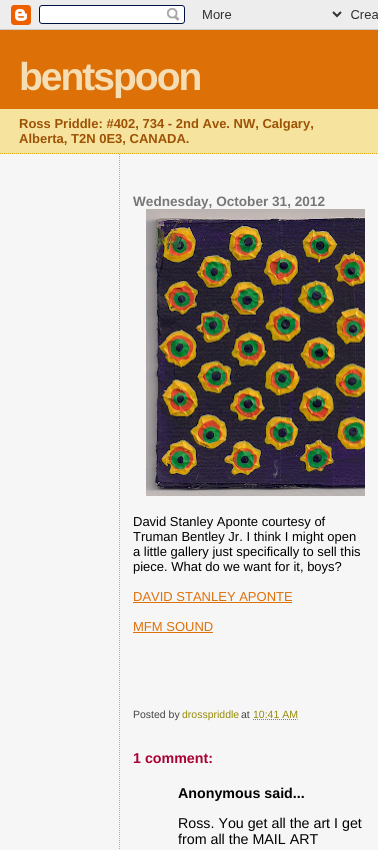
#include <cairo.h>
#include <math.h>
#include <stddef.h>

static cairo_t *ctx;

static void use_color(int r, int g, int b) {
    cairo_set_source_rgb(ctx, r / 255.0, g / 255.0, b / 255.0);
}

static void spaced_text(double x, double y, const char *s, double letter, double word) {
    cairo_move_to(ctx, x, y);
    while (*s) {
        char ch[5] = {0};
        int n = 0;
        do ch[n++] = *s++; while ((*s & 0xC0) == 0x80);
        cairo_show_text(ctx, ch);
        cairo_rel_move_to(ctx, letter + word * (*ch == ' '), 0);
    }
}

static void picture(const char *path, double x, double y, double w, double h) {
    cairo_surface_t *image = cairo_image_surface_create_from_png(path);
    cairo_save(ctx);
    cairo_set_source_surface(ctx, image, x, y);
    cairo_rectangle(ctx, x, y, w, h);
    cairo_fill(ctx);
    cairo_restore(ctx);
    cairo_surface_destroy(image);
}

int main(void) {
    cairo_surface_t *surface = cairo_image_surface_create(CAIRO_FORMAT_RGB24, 378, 850);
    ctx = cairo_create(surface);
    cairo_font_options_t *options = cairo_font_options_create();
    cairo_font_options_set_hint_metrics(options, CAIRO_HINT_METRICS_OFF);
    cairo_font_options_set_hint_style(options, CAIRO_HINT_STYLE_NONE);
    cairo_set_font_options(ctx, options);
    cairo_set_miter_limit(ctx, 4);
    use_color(246, 246, 246);
    cairo_paint(ctx);
    picture("img1.png", 0, 0, 378, 30);
    use_color(245, 227, 158);
    cairo_rectangle(ctx, 0, 109, 378, 45);
    cairo_fill(ctx);
    cairo_new_path(ctx);
    cairo_move_to(ctx, 0, 153.5);
    cairo_line_to(ctx, 378, 153.5);
    use_color(224, 173, 18);
    cairo_set_line_width(ctx, 1);
    cairo_set_dash(ctx, (double[]){1, 1}, 2, 0);
    cairo_stroke(ctx);
    use_color(222, 112, 8);
    cairo_rectangle(ctx, 0, 30, 378, 79);
    cairo_fill(ctx);
    cairo_select_font_face(ctx, "Liberation Sans", CAIRO_FONT_SLANT_NORMAL, CAIRO_FONT_WEIGHT_BOLD);
    cairo_set_font_size(ctx, 39);
    use_color(245, 222, 179);
    spaced_text(19, 90, "bentspoon", -2, 0);
    cairo_set_font_size(ctx, 13);
    use_color(158, 82, 5);
    cairo_move_to(ctx, 19, 128);
    cairo_show_text(ctx, "Ross Priddle: #402, 734 - 2nd Ave. NW, Calgary,");
    cairo_move_to(ctx, 19, 143);
    cairo_show_text(ctx, "Alberta, T2N 0E3, CANADA.");
    cairo_new_path(ctx);
    cairo_move_to(ctx, 119.5, 154);
    cairo_line_to(ctx, 119.5, 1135);
    use_color(224, 173, 18);
    cairo_stroke(ctx);
    cairo_set_font_size(ctx, 13.6);
    use_color(119, 119, 119);
    cairo_move_to(ctx, 133, 206);
    cairo_show_text(ctx, "Wednesday, October 31, 2012");
    picture("img2.png", 146, 209, 219, 287);
    cairo_select_font_face(ctx, "Liberation Sans", CAIRO_FONT_SLANT_NORMAL, CAIRO_FONT_WEIGHT_NORMAL);
    cairo_set_font_size(ctx, 13);
    use_color(0, 0, 0);
    cairo_move_to(ctx, 133, 526);
    cairo_show_text(ctx, "David Stanley Aponte courtesy of");
    cairo_move_to(ctx, 133, 541);
    cairo_show_text(ctx, "Truman Bentley Jr. I think I might open");
    cairo_move_to(ctx, 133, 556);
    cairo_show_text(ctx, "a little gallery just specifically to sell this");
    cairo_move_to(ctx, 133, 571);
    cairo_show_text(ctx, "piece. What do we want for it, boys?");
    use_color(222, 112, 8);
    cairo_move_to(ctx, 133, 601);
    cairo_show_text(ctx, "DAVID STANLEY APONTE");
    cairo_rectangle(ctx, 133, 602, 159, 1);
    cairo_fill(ctx);
    cairo_move_to(ctx, 133, 631);
    cairo_show_text(ctx, "MFM SOUND");
    cairo_rectangle(ctx, 133, 632, 80, 1);
    cairo_fill(ctx);
    cairo_set_font_size(ctx, 10.5);
    use_color(68, 68, 68);
    cairo_move_to(ctx, 133, 718);
    cairo_show_text(ctx, "Posted by");
    use_color(150, 138, 10);
    cairo_move_to(ctx, 182, 718);
    cairo_show_text(ctx, "drosspriddle");
    use_color(68, 68, 68);
    cairo_move_to(ctx, 241, 718);
    cairo_show_text(ctx, "at");
    use_color(150, 138, 10);
    cairo_move_to(ctx, 253, 718);
    cairo_show_text(ctx, "10:41 AM");
    cairo_new_path(ctx);
    cairo_move_to(ctx, 253, 719.5);
    cairo_line_to(ctx, 297.5, 719.5);
    cairo_stroke(ctx);
    cairo_select_font_face(ctx, "Liberation Sans", CAIRO_FONT_SLANT_NORMAL, CAIRO_FONT_WEIGHT_BOLD);
    cairo_set_font_size(ctx, 14.25);
    use_color(170, 0, 51);
    cairo_move_to(ctx, 133, 763);
    cairo_show_text(ctx, "1 comment:");
    use_color(0, 0, 0);
    cairo_move_to(ctx, 178, 798);
    cairo_show_text(ctx, "Anonymous said...");
    cairo_select_font_face(ctx, "Liberation Sans", CAIRO_FONT_SLANT_NORMAL, CAIRO_FONT_WEIGHT_NORMAL);
    cairo_move_to(ctx, 178, 828);
    cairo_show_text(ctx, "Ross. You get all the art I get");
    cairo_move_to(ctx, 178, 844);
    cairo_show_text(ctx, "from all the MAIL ART");
    cairo_surface_write_to_png(surface, "result.png");
    cairo_font_options_destroy(options);
    cairo_destroy(ctx);
    cairo_surface_destroy(surface);
    return 0;
}
